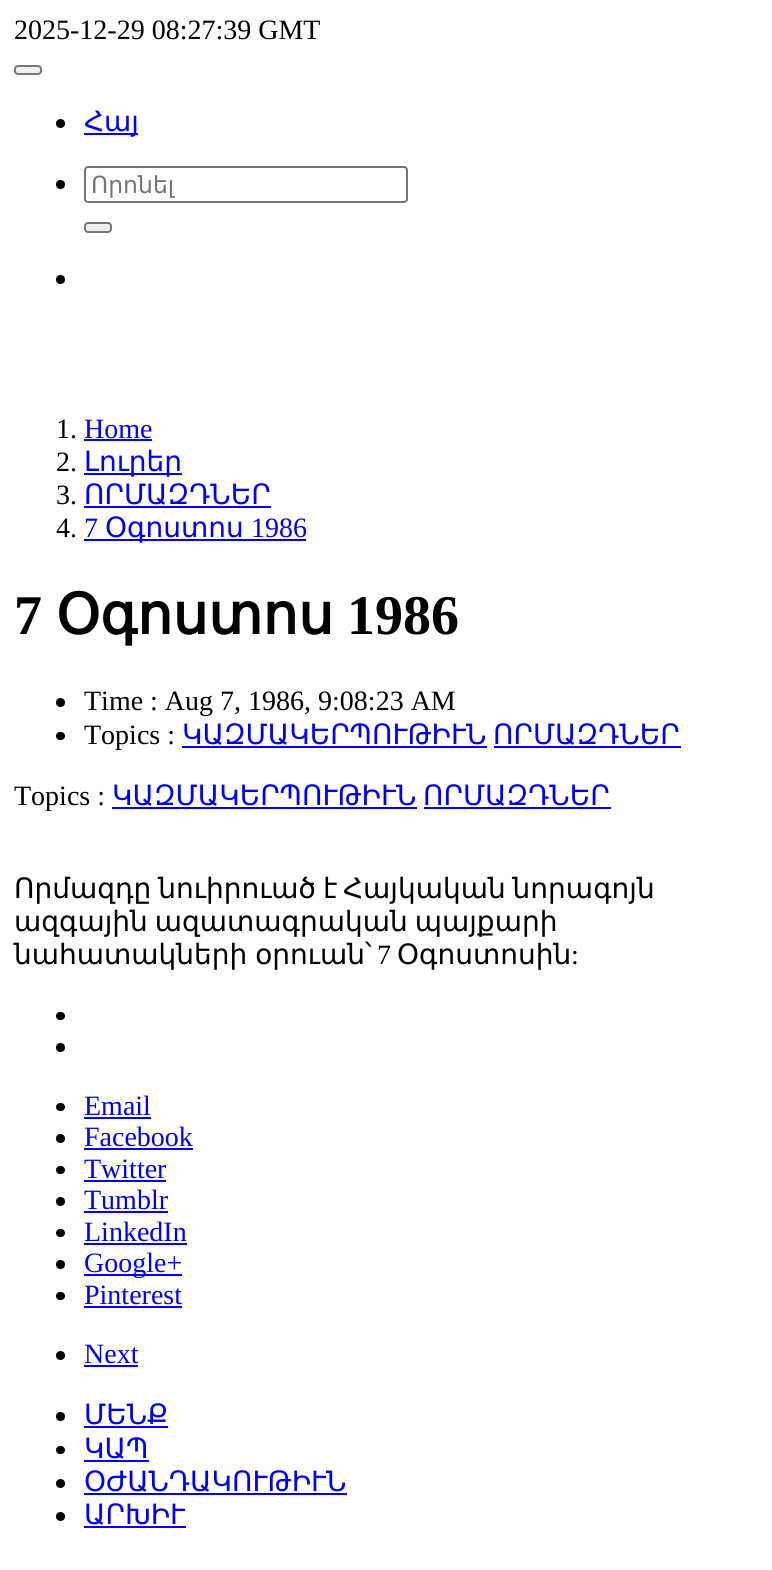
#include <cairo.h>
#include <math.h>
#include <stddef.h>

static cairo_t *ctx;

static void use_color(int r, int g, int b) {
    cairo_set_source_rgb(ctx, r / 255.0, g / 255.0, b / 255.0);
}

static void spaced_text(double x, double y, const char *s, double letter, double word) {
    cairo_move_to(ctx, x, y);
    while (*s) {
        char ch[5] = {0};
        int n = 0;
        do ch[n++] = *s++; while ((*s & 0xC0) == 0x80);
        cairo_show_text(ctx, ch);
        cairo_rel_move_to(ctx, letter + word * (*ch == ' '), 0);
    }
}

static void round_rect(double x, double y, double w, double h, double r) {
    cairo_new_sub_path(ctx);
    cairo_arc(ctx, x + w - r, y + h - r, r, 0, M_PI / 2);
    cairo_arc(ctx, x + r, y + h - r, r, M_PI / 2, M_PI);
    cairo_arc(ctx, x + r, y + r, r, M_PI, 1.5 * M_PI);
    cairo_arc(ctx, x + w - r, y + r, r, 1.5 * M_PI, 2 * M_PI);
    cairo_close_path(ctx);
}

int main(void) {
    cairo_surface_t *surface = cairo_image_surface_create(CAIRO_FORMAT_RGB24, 772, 1570);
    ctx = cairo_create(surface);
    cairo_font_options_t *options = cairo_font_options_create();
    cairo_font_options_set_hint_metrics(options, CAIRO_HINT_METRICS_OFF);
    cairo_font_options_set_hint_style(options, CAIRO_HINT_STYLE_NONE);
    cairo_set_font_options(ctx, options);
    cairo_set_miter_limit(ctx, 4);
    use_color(255, 255, 255);
    cairo_paint(ctx);
    cairo_select_font_face(ctx, "Liberation Serif", CAIRO_FONT_SLANT_NORMAL, CAIRO_FONT_WEIGHT_NORMAL);
    cairo_set_font_size(ctx, 28);
    use_color(0, 0, 0);
    cairo_move_to(ctx, 14, 39);
    cairo_show_text(ctx, "2025-12-29 08:27:39 GMT");
    use_color(239, 239, 239);
    round_rect(15, 66, 26, 8, 3);
    cairo_fill_preserve(ctx);
    use_color(118, 118, 118);
    cairo_stroke(ctx);
    use_color(0, 0, 0);
    cairo_arc(ctx, 60.5, 123.5, 4.5, 0, 2 * M_PI);
    cairo_fill(ctx);
    use_color(0, 0, 238);
    cairo_rectangle(ctx, 84, 133, 54, 2);
    cairo_fill(ctx);
    cairo_select_font_face(ctx, "DejaVu Sans", CAIRO_FONT_SLANT_NORMAL, CAIRO_FONT_WEIGHT_NORMAL);
    cairo_move_to(ctx, 84, 131);
    cairo_show_text(ctx, "Հայ");
    use_color(0, 0, 0);
    cairo_new_path(ctx);
    cairo_arc(ctx, 60.5, 184.5, 4.5, 0, 2 * M_PI);
    cairo_fill(ctx);
    round_rect(85, 167, 322, 35, 3);
    use_color(118, 118, 118);
    cairo_stroke(ctx);
    cairo_set_font_size(ctx, 23.5);
    use_color(117, 117, 117);
    cairo_move_to(ctx, 91, 193);
    cairo_show_text(ctx, "Որոնել");
    use_color(239, 239, 239);
    round_rect(85, 223, 26, 9, 3);
    cairo_fill_preserve(ctx);
    use_color(118, 118, 118);
    cairo_stroke(ctx);
    use_color(0, 0, 0);
    cairo_arc(ctx, 60.5, 279.5, 4.5, 0, 2 * M_PI);
    cairo_fill(ctx);
    cairo_select_font_face(ctx, "Liberation Serif", CAIRO_FONT_SLANT_NORMAL, CAIRO_FONT_WEIGHT_NORMAL);
    cairo_set_font_size(ctx, 28);
    cairo_move_to(ctx, 56, 438);
    cairo_show_text(ctx, "1.");
    use_color(0, 0, 238);
    cairo_move_to(ctx, 84, 438);
    cairo_show_text(ctx, "Home");
    cairo_rectangle(ctx, 84, 439, 68, 2);
    cairo_fill(ctx);
    use_color(0, 0, 0);
    cairo_move_to(ctx, 56, 471);
    cairo_show_text(ctx, "2.");
    use_color(0, 0, 238);
    cairo_rectangle(ctx, 84, 473, 98, 2);
    cairo_fill(ctx);
    cairo_select_font_face(ctx, "DejaVu Sans", CAIRO_FONT_SLANT_NORMAL, CAIRO_FONT_WEIGHT_NORMAL);
    cairo_move_to(ctx, 84, 471);
    cairo_show_text(ctx, "Լուրեր");
    cairo_select_font_face(ctx, "Liberation Serif", CAIRO_FONT_SLANT_NORMAL, CAIRO_FONT_WEIGHT_NORMAL);
    use_color(0, 0, 0);
    cairo_move_to(ctx, 56, 504);
    cairo_show_text(ctx, "3.");
    cairo_select_font_face(ctx, "DejaVu Sans", CAIRO_FONT_SLANT_NORMAL, CAIRO_FONT_WEIGHT_NORMAL);
    use_color(0, 0, 238);
    cairo_move_to(ctx, 84, 504);
    cairo_show_text(ctx, "ՈՐՄԱԶԴՆԵՐ");
    cairo_rectangle(ctx, 84, 506, 187, 2);
    cairo_fill(ctx);
    cairo_select_font_face(ctx, "Liberation Serif", CAIRO_FONT_SLANT_NORMAL, CAIRO_FONT_WEIGHT_NORMAL);
    use_color(0, 0, 0);
    cairo_move_to(ctx, 56, 537);
    cairo_show_text(ctx, "4.");
    use_color(0, 0, 238);
    cairo_move_to(ctx, 84, 537);
    cairo_show_text(ctx, "7");
    cairo_rectangle(ctx, 84, 539, 222, 2);
    cairo_fill(ctx);
    cairo_select_font_face(ctx, "DejaVu Sans", CAIRO_FONT_SLANT_NORMAL, CAIRO_FONT_WEIGHT_NORMAL);
    cairo_move_to(ctx, 105, 537);
    cairo_show_text(ctx, "Օգոստոս");
    cairo_select_font_face(ctx, "Liberation Serif", CAIRO_FONT_SLANT_NORMAL, CAIRO_FONT_WEIGHT_NORMAL);
    cairo_move_to(ctx, 251, 537);
    cairo_show_text(ctx, "1986");
    cairo_select_font_face(ctx, "Liberation Serif", CAIRO_FONT_SLANT_NORMAL, CAIRO_FONT_WEIGHT_BOLD);
    cairo_set_font_size(ctx, 56);
    use_color(0, 0, 0);
    cairo_move_to(ctx, 14, 634);
    cairo_show_text(ctx, "7");
    cairo_select_font_face(ctx, "DejaVu Sans", CAIRO_FONT_SLANT_NORMAL, CAIRO_FONT_WEIGHT_BOLD);
    cairo_move_to(ctx, 56, 634);
    cairo_show_text(ctx, "Օգոստոս");
    cairo_select_font_face(ctx, "Liberation Serif", CAIRO_FONT_SLANT_NORMAL, CAIRO_FONT_WEIGHT_BOLD);
    cairo_move_to(ctx, 347, 634);
    cairo_show_text(ctx, "1986");
    cairo_new_path(ctx);
    cairo_arc(ctx, 60.5, 702.5, 4.5, 0, 2 * M_PI);
    cairo_fill(ctx);
    cairo_select_font_face(ctx, "Liberation Serif", CAIRO_FONT_SLANT_NORMAL, CAIRO_FONT_WEIGHT_NORMAL);
    cairo_set_font_size(ctx, 28);
    cairo_move_to(ctx, 84, 710);
    cairo_show_text(ctx, "Time : Aug 7, 1986, 9:08:23 AM");
    round_rect(56, 732, 9, 8, 4);
    cairo_fill(ctx);
    cairo_move_to(ctx, 84, 744);
    cairo_show_text(ctx, "Topics :");
    cairo_select_font_face(ctx, "DejaVu Sans", CAIRO_FONT_SLANT_NORMAL, CAIRO_FONT_WEIGHT_NORMAL);
    use_color(0, 0, 238);
    cairo_move_to(ctx, 182, 744);
    cairo_show_text(ctx, "ԿԱԶՄԱԿԵՐՊՈՒԹԻՒՆ");
    cairo_rectangle(ctx, 182, 746, 305, 2);
    cairo_fill(ctx);
    cairo_move_to(ctx, 493, 744);
    cairo_show_text(ctx, "ՈՐՄԱԶԴՆԵՐ");
    cairo_rectangle(ctx, 494, 746, 187, 2);
    cairo_fill(ctx);
    cairo_select_font_face(ctx, "Liberation Serif", CAIRO_FONT_SLANT_NORMAL, CAIRO_FONT_WEIGHT_NORMAL);
    use_color(0, 0, 0);
    cairo_move_to(ctx, 14, 805);
    cairo_show_text(ctx, "Topics :");
    cairo_select_font_face(ctx, "DejaVu Sans", CAIRO_FONT_SLANT_NORMAL, CAIRO_FONT_WEIGHT_NORMAL);
    use_color(0, 0, 238);
    cairo_move_to(ctx, 112, 805);
    cairo_show_text(ctx, "ԿԱԶՄԱԿԵՐՊՈՒԹԻՒՆ");
    cairo_rectangle(ctx, 112, 807, 305, 2);
    cairo_fill(ctx);
    cairo_move_to(ctx, 423, 805);
    cairo_show_text(ctx, "ՈՐՄԱԶԴՆԵՐ");
    cairo_rectangle(ctx, 424, 807, 187, 2);
    cairo_fill(ctx);
    use_color(0, 0, 0);
    spaced_text(14, 898, "Որմազդը նուիրուած է", 0, -2);
    spaced_text(343, 898, "Հայկական նորագոյն", 0, -2);
    spaced_text(14, 931, "ազգային ազատագրական պայքարի", 0, -2);
    spaced_text(14, 964, "նահատակների օրուան՝", 0, -1);
    cairo_select_font_face(ctx, "Liberation Serif", CAIRO_FONT_SLANT_NORMAL, CAIRO_FONT_WEIGHT_NORMAL);
    cairo_move_to(ctx, 377, 964);
    cairo_show_text(ctx, "7");
    cairo_select_font_face(ctx, "DejaVu Sans", CAIRO_FONT_SLANT_NORMAL, CAIRO_FONT_WEIGHT_NORMAL);
    cairo_move_to(ctx, 397, 964);
    cairo_show_text(ctx, "Օգոստոսին");
    cairo_select_font_face(ctx, "Liberation Serif", CAIRO_FONT_SLANT_NORMAL, CAIRO_FONT_WEIGHT_NORMAL);
    cairo_move_to(ctx, 571, 964);
    cairo_show_text(ctx, ":");
    round_rect(56, 1012, 9, 8, 4);
    cairo_fill(ctx);
    cairo_arc(ctx, 60.5, 1047.5, 4.5, 0, 2 * M_PI);
    cairo_fill(ctx);
    round_rect(56, 1103, 9, 8, 4);
    cairo_fill(ctx);
    use_color(0, 0, 238);
    cairo_move_to(ctx, 84, 1115);
    cairo_show_text(ctx, "Email");
    cairo_rectangle(ctx, 84, 1117, 67, 2);
    cairo_fill(ctx);
    use_color(0, 0, 0);
    cairo_arc(ctx, 60.5, 1138.5, 4.5, 0, 2 * M_PI);
    cairo_fill(ctx);
    use_color(0, 0, 238);
    cairo_move_to(ctx, 84, 1146);
    cairo_show_text(ctx, "Facebook");
    cairo_rectangle(ctx, 84, 1148, 109, 2);
    cairo_fill(ctx);
    use_color(0, 0, 0);
    round_rect(56, 1166, 9, 8, 4);
    cairo_fill(ctx);
    use_color(0, 0, 238);
    cairo_move_to(ctx, 84, 1178);
    cairo_show_text(ctx, "Twitter");
    cairo_rectangle(ctx, 84, 1180, 82, 2);
    cairo_fill(ctx);
    use_color(0, 0, 0);
    cairo_arc(ctx, 60.5, 1201.5, 4.5, 0, 2 * M_PI);
    cairo_fill(ctx);
    use_color(0, 0, 238);
    cairo_move_to(ctx, 84, 1209);
    cairo_show_text(ctx, "Tumblr");
    cairo_rectangle(ctx, 84, 1211, 84, 2);
    cairo_fill(ctx);
    use_color(0, 0, 0);
    round_rect(56, 1229, 9, 8, 4);
    cairo_fill(ctx);
    use_color(0, 0, 238);
    cairo_move_to(ctx, 84, 1241);
    cairo_show_text(ctx, "LinkedIn");
    cairo_rectangle(ctx, 84, 1243, 103, 2);
    cairo_fill(ctx);
    use_color(0, 0, 0);
    cairo_arc(ctx, 60.5, 1264.5, 4.5, 0, 2 * M_PI);
    cairo_fill(ctx);
    use_color(0, 0, 238);
    cairo_rectangle(ctx, 84, 1274, 98, 2);
    cairo_fill(ctx);
    cairo_move_to(ctx, 84, 1272);
    cairo_show_text(ctx, "Google+");
    use_color(0, 0, 0);
    round_rect(56, 1292, 9, 8, 4);
    cairo_fill(ctx);
    use_color(0, 0, 238);
    cairo_move_to(ctx, 84, 1304);
    cairo_show_text(ctx, "Pinterest");
    cairo_rectangle(ctx, 84, 1306, 98, 2);
    cairo_fill(ctx);
    use_color(0, 0, 0);
    cairo_arc(ctx, 60.5, 1355.5, 4.5, 0, 2 * M_PI);
    cairo_fill(ctx);
    use_color(0, 0, 238);
    cairo_move_to(ctx, 84, 1363);
    cairo_show_text(ctx, "Next");
    cairo_rectangle(ctx, 84, 1365, 54, 2);
    cairo_fill(ctx);
    use_color(0, 0, 0);
    cairo_arc(ctx, 60.5, 1416.5, 4.5, 0, 2 * M_PI);
    cairo_fill(ctx);
    cairo_select_font_face(ctx, "DejaVu Sans", CAIRO_FONT_SLANT_NORMAL, CAIRO_FONT_WEIGHT_NORMAL);
    use_color(0, 0, 238);
    cairo_move_to(ctx, 84, 1424);
    cairo_show_text(ctx, "ՄԵՆՔ");
    cairo_rectangle(ctx, 84, 1426, 84, 2);
    cairo_fill(ctx);
    use_color(0, 0, 0);
    round_rect(56, 1446, 9, 8, 4);
    cairo_fill(ctx);
    use_color(0, 0, 238);
    cairo_move_to(ctx, 84, 1458);
    cairo_show_text(ctx, "ԿԱՊ");
    cairo_rectangle(ctx, 84, 1460, 65, 2);
    cairo_fill(ctx);
    use_color(0, 0, 0);
    cairo_arc(ctx, 60.5, 1483.5, 4.5, 0, 2 * M_PI);
    cairo_fill(ctx);
    use_color(0, 0, 238);
    cairo_move_to(ctx, 84, 1491);
    cairo_show_text(ctx, "ՕԺԱՆԴԱԿՈՒԹԻՒՆ");
    cairo_rectangle(ctx, 84, 1493, 263, 2);
    cairo_fill(ctx);
    use_color(0, 0, 0);
    cairo_arc(ctx, 60.5, 1516.5, 4.5, 0, 2 * M_PI);
    cairo_fill(ctx);
    use_color(0, 0, 238);
    cairo_move_to(ctx, 84, 1524);
    cairo_show_text(ctx, "ԱՐԽԻՒ");
    cairo_rectangle(ctx, 84, 1526, 102, 2);
    cairo_fill(ctx);
    cairo_surface_write_to_png(surface, "result.png");
    cairo_font_options_destroy(options);
    cairo_destroy(ctx);
    cairo_surface_destroy(surface);
    return 0;
}
